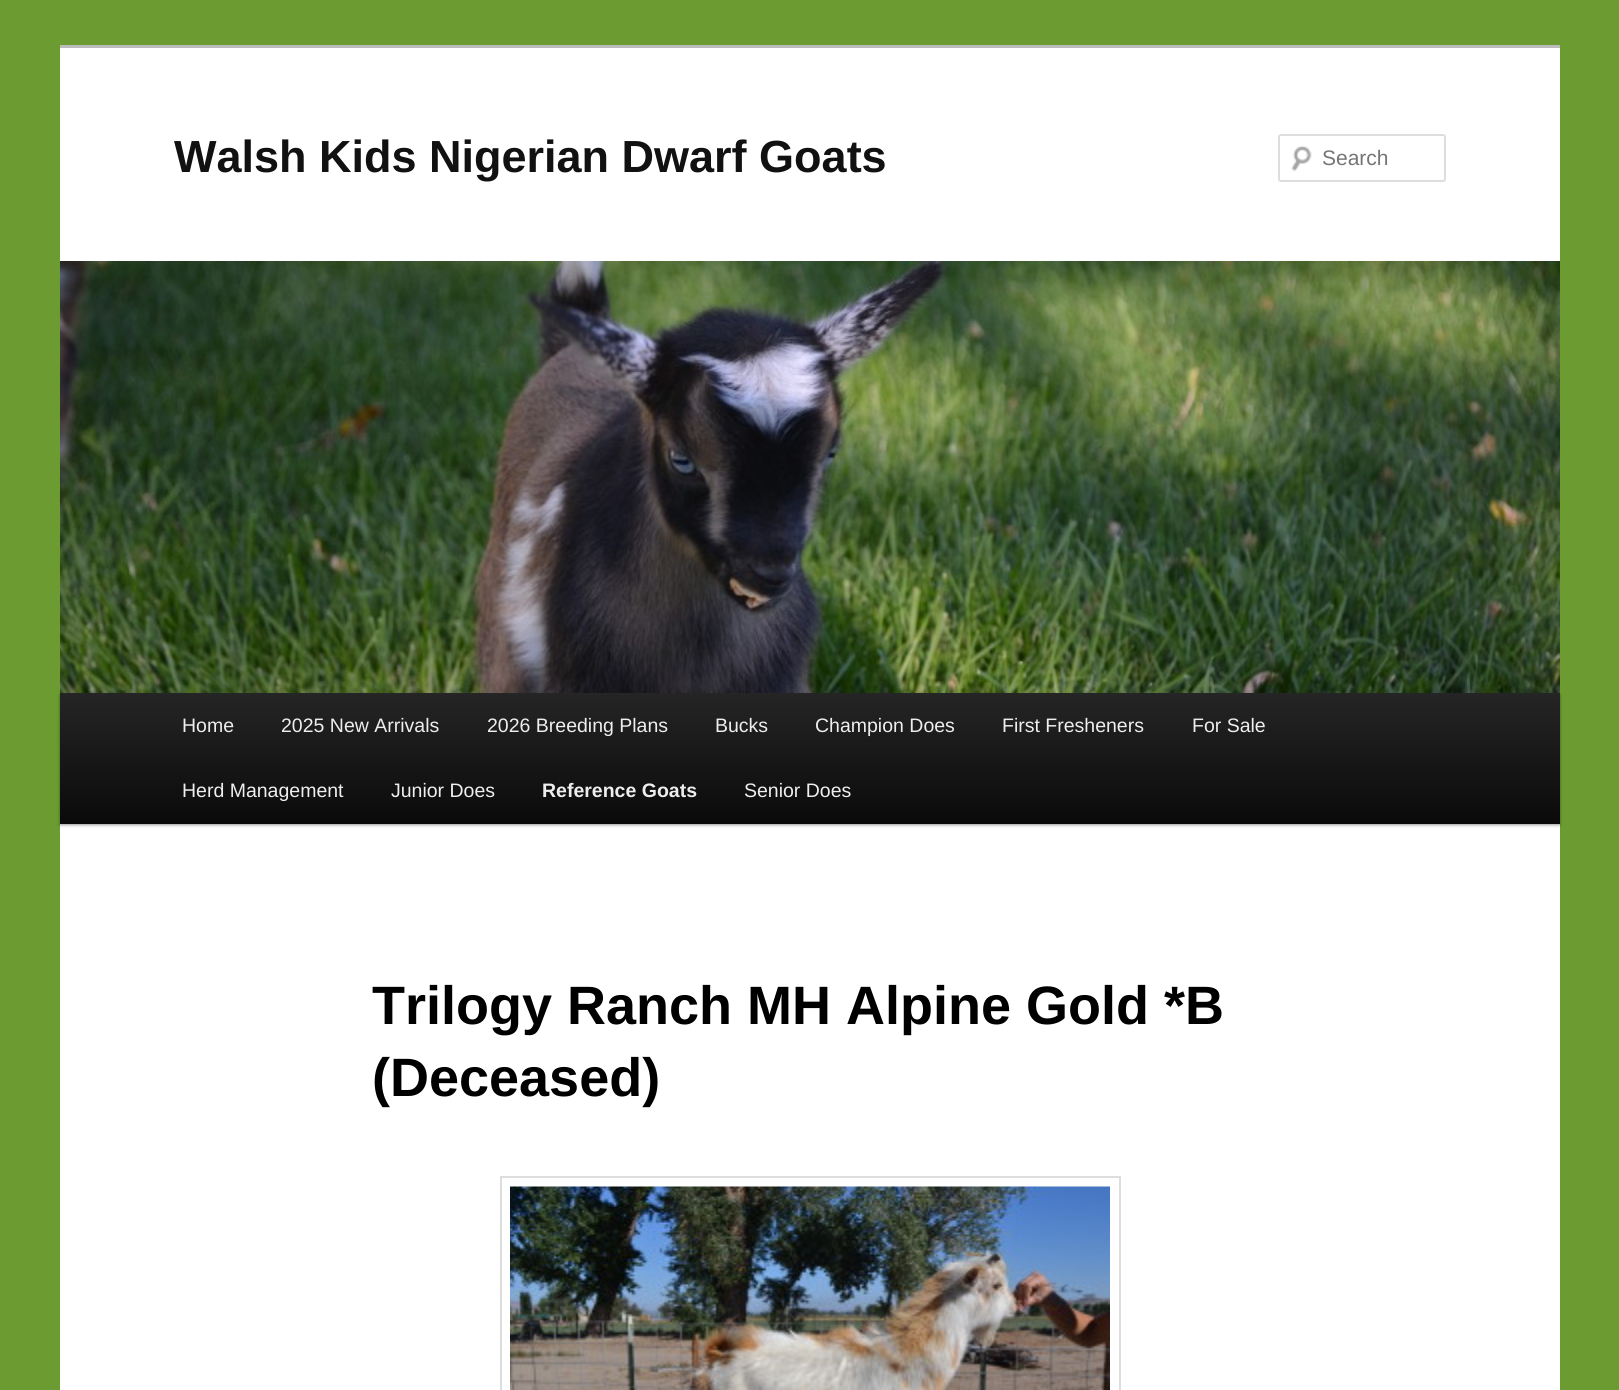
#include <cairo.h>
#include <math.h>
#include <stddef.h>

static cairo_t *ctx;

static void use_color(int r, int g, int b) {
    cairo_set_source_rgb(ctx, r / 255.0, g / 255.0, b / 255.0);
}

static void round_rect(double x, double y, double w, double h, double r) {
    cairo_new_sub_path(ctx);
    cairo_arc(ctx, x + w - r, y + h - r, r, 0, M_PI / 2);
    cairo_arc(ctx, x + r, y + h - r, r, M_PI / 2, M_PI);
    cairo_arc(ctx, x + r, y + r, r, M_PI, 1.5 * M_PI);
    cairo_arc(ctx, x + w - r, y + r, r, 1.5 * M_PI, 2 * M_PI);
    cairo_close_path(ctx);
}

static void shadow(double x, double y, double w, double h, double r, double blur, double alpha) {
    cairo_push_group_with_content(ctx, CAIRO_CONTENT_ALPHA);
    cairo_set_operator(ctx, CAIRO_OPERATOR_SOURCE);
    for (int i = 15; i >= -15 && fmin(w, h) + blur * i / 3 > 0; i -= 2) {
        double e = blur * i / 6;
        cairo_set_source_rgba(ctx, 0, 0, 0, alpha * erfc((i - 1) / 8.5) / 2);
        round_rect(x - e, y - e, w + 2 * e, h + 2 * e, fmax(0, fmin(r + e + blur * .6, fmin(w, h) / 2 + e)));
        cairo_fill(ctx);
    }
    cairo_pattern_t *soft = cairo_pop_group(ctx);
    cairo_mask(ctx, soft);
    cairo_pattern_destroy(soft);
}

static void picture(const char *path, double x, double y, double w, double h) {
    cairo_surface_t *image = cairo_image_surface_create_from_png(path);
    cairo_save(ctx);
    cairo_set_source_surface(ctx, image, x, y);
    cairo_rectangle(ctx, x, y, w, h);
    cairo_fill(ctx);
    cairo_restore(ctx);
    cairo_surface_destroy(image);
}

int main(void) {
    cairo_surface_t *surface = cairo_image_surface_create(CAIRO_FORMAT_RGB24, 1619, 1390);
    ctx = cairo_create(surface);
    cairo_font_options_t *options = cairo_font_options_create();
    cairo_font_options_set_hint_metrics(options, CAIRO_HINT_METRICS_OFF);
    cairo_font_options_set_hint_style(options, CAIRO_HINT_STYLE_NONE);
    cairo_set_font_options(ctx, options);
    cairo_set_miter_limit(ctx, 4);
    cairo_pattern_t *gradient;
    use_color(107, 155, 49);
    cairo_paint(ctx);
    use_color(255, 255, 255);
    cairo_rectangle(ctx, 60, 48, 1500, 1342);
    cairo_fill(ctx);
    use_color(187, 187, 187);
    cairo_rectangle(ctx, 60, 45, 1500, 3);
    cairo_fill(ctx);
    cairo_select_font_face(ctx, "Liberation Sans", CAIRO_FONT_SLANT_NORMAL, CAIRO_FONT_WEIGHT_BOLD);
    cairo_set_font_size(ctx, 45);
    use_color(17, 17, 17);
    cairo_move_to(ctx, 174, 172);
    cairo_show_text(ctx, "Walsh Kids Nigerian Dwarf Goats");
    picture("img1.png", 1291, 145, 21, 27);
    round_rect(1279, 135, 166, 46, 2);
    use_color(221, 221, 221);
    cairo_stroke(ctx);
    cairo_select_font_face(ctx, "Liberation Sans", CAIRO_FONT_SLANT_NORMAL, CAIRO_FONT_WEIGHT_NORMAL);
    cairo_set_font_size(ctx, 21);
    use_color(117, 117, 117);
    cairo_move_to(ctx, 1322, 165);
    cairo_show_text(ctx, "Search");
    use_color(0, 0, 0);
    shadow(60, 695, 1500, 130, 0, 1.5, 0.4);
    picture("img2.png", 60, 261, 1500, 432);
    gradient = cairo_pattern_create_linear(810, 693, 810, 824);
    cairo_pattern_add_color_stop_rgba(gradient, 0, 0.145, 0.145, 0.145, 1);
    cairo_pattern_add_color_stop_rgba(gradient, 1, 0.039, 0.039, 0.039, 1);
    cairo_set_source(ctx, gradient);
    cairo_pattern_destroy(gradient);
    cairo_rectangle(ctx, 60, 693, 1500, 131);
    cairo_fill(ctx);
    cairo_set_font_size(ctx, 19.5);
    use_color(238, 238, 238);
    cairo_move_to(ctx, 182, 732);
    cairo_show_text(ctx, "Home");
    cairo_move_to(ctx, 281, 732);
    cairo_show_text(ctx, "2025 New Arrivals");
    cairo_move_to(ctx, 487, 732);
    cairo_show_text(ctx, "2026 Breeding Plans");
    cairo_move_to(ctx, 715, 732);
    cairo_show_text(ctx, "Bucks");
    cairo_move_to(ctx, 815, 732);
    cairo_show_text(ctx, "Champion Does");
    cairo_move_to(ctx, 1002, 732);
    cairo_show_text(ctx, "First Fresheners");
    cairo_move_to(ctx, 1192, 732);
    cairo_show_text(ctx, "For Sale");
    cairo_move_to(ctx, 182, 797);
    cairo_show_text(ctx, "Herd Management");
    cairo_move_to(ctx, 391, 797);
    cairo_show_text(ctx, "Junior Does");
    cairo_select_font_face(ctx, "Liberation Sans", CAIRO_FONT_SLANT_NORMAL, CAIRO_FONT_WEIGHT_BOLD);
    cairo_move_to(ctx, 542, 797);
    cairo_show_text(ctx, "Reference Goats");
    cairo_select_font_face(ctx, "Liberation Sans", CAIRO_FONT_SLANT_NORMAL, CAIRO_FONT_WEIGHT_NORMAL);
    cairo_move_to(ctx, 744, 797);
    cairo_show_text(ctx, "Senior Does");
    cairo_select_font_face(ctx, "Liberation Sans", CAIRO_FONT_SLANT_NORMAL, CAIRO_FONT_WEIGHT_BOLD);
    cairo_set_font_size(ctx, 54);
    use_color(0, 0, 0);
    cairo_move_to(ctx, 372, 1024);
    cairo_show_text(ctx, "Trilogy Ranch MH Alpine Gold *B");
    cairo_move_to(ctx, 372, 1096);
    cairo_show_text(ctx, "(Deceased)");
    cairo_rectangle(ctx, 501, 1177, 619, 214);
    use_color(221, 221, 221);
    cairo_stroke(ctx);
    picture("img3.png", 510, 1186, 600, 204);
    cairo_surface_write_to_png(surface, "result.png");
    cairo_font_options_destroy(options);
    cairo_destroy(ctx);
    cairo_surface_destroy(surface);
    return 0;
}
